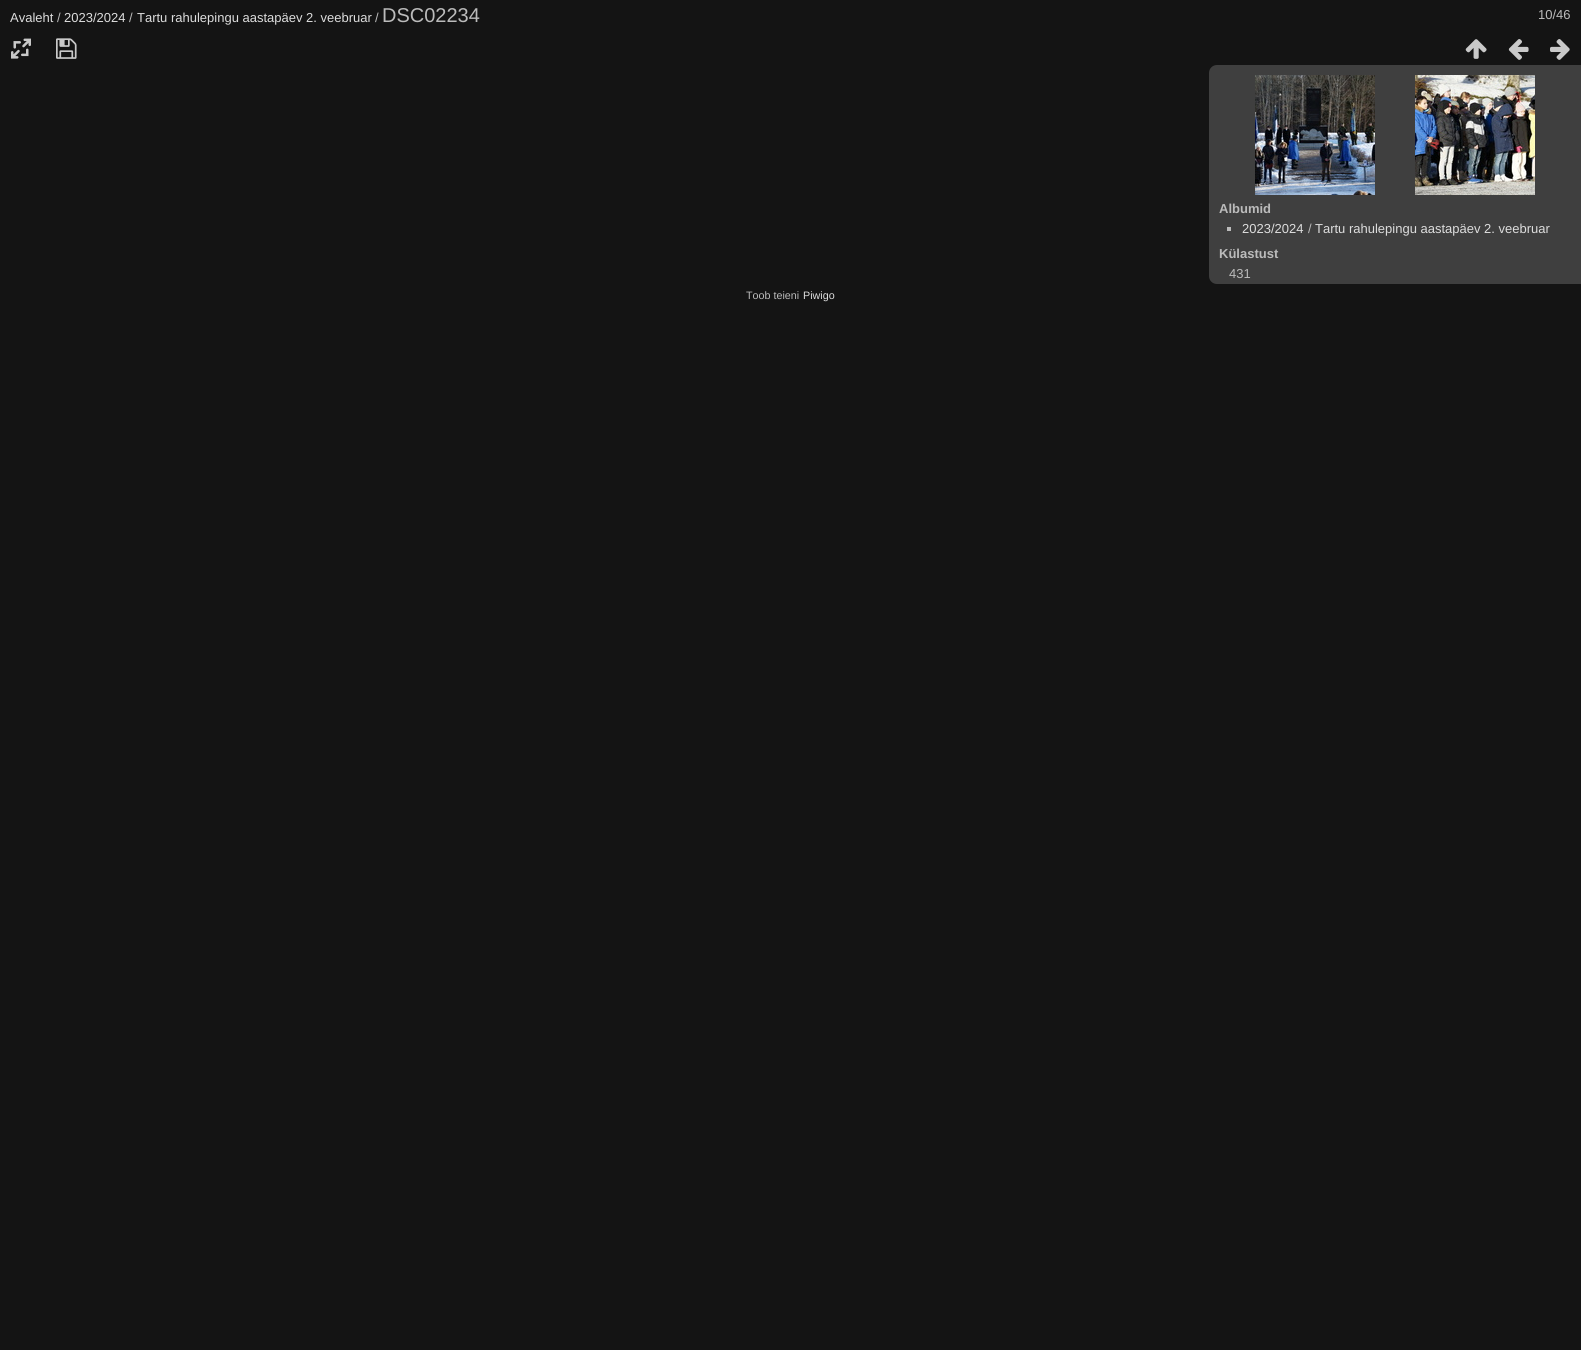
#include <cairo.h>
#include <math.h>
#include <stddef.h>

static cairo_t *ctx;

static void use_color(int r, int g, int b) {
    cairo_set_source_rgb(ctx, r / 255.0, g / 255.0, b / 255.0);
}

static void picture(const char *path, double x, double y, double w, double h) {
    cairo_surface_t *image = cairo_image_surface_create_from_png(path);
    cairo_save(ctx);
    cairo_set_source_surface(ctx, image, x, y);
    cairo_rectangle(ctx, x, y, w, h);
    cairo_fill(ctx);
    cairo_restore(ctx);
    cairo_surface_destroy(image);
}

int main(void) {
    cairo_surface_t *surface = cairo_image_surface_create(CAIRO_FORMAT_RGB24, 1581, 1350);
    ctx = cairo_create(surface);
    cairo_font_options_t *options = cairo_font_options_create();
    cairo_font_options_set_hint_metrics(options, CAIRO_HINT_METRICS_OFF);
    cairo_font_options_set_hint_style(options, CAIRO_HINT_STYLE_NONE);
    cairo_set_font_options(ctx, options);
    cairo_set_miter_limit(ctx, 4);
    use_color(20, 20, 20);
    cairo_paint(ctx);
    cairo_select_font_face(ctx, "Liberation Sans", CAIRO_FONT_SLANT_NORMAL, CAIRO_FONT_WEIGHT_NORMAL);
    cairo_set_font_size(ctx, 13);
    use_color(221, 221, 221);
    cairo_move_to(ctx, 10, 22);
    cairo_show_text(ctx, "Avaleht");
    use_color(187, 187, 187);
    cairo_move_to(ctx, 57, 22);
    cairo_show_text(ctx, "/");
    use_color(221, 221, 221);
    cairo_move_to(ctx, 64, 22);
    cairo_show_text(ctx, "2023/2024");
    use_color(187, 187, 187);
    cairo_move_to(ctx, 129, 22);
    cairo_show_text(ctx, "/");
    use_color(221, 221, 221);
    cairo_move_to(ctx, 137, 22);
    cairo_show_text(ctx, "Tartu rahulepingu aastapäev 2. veebruar");
    use_color(187, 187, 187);
    cairo_move_to(ctx, 375, 22);
    cairo_show_text(ctx, "/");
    cairo_set_font_size(ctx, 20);
    cairo_move_to(ctx, 382, 22);
    cairo_show_text(ctx, "DSC02234");
    cairo_set_font_size(ctx, 13);
    cairo_move_to(ctx, 1538, 19);
    cairo_show_text(ctx, "10/46");
    picture("img1.png", 11, 38, 20, 21);
    picture("img2.png", 56, 38, 21, 21);
    picture("img3.png", 1465, 39, 22, 20);
    picture("img4.png", 1508, 39, 21, 21);
    picture("img5.png", 1550, 39, 20, 21);
    use_color(63, 63, 63);
    cairo_new_path(ctx);
    cairo_move_to(ctx, 1217, 65);
    cairo_line_to(ctx, 1581, 65);
    cairo_line_to(ctx, 1581, 284);
    cairo_line_to(ctx, 1217, 284);
    cairo_curve_to(ctx, 1212.5, 284, 1209, 280.5, 1209, 276);
    cairo_line_to(ctx, 1209, 73);
    cairo_curve_to(ctx, 1209, 68.5, 1212.5, 65, 1217, 65);
    cairo_close_path(ctx);
    cairo_fill(ctx);
    picture("img6.png", 1255, 75, 120, 120);
    picture("img7.png", 1415, 75, 120, 120);
    cairo_select_font_face(ctx, "Liberation Sans", CAIRO_FONT_SLANT_NORMAL, CAIRO_FONT_WEIGHT_BOLD);
    use_color(187, 187, 187);
    cairo_move_to(ctx, 1219, 213);
    cairo_show_text(ctx, "Albumid");
    cairo_rectangle(ctx, 1227, 227, 4, 4);
    cairo_fill(ctx);
    cairo_select_font_face(ctx, "Liberation Sans", CAIRO_FONT_SLANT_NORMAL, CAIRO_FONT_WEIGHT_NORMAL);
    use_color(221, 221, 221);
    cairo_move_to(ctx, 1242, 233);
    cairo_show_text(ctx, "2023/2024");
    use_color(187, 187, 187);
    cairo_move_to(ctx, 1308, 233);
    cairo_show_text(ctx, "/");
    use_color(221, 221, 221);
    cairo_move_to(ctx, 1315, 233);
    cairo_show_text(ctx, "Tartu rahulepingu aastapäev 2. veebruar");
    cairo_select_font_face(ctx, "Liberation Sans", CAIRO_FONT_SLANT_NORMAL, CAIRO_FONT_WEIGHT_BOLD);
    use_color(187, 187, 187);
    cairo_move_to(ctx, 1219, 258);
    cairo_show_text(ctx, "Külastust");
    cairo_select_font_face(ctx, "Liberation Sans", CAIRO_FONT_SLANT_NORMAL, CAIRO_FONT_WEIGHT_NORMAL);
    cairo_move_to(ctx, 1229, 278);
    cairo_show_text(ctx, "431");
    cairo_set_font_size(ctx, 10.75);
    cairo_move_to(ctx, 746, 299);
    cairo_show_text(ctx, "Toob teieni");
    use_color(221, 221, 221);
    cairo_move_to(ctx, 803, 299);
    cairo_show_text(ctx, "Piwigo");
    cairo_surface_write_to_png(surface, "result.png");
    cairo_font_options_destroy(options);
    cairo_destroy(ctx);
    cairo_surface_destroy(surface);
    return 0;
}
